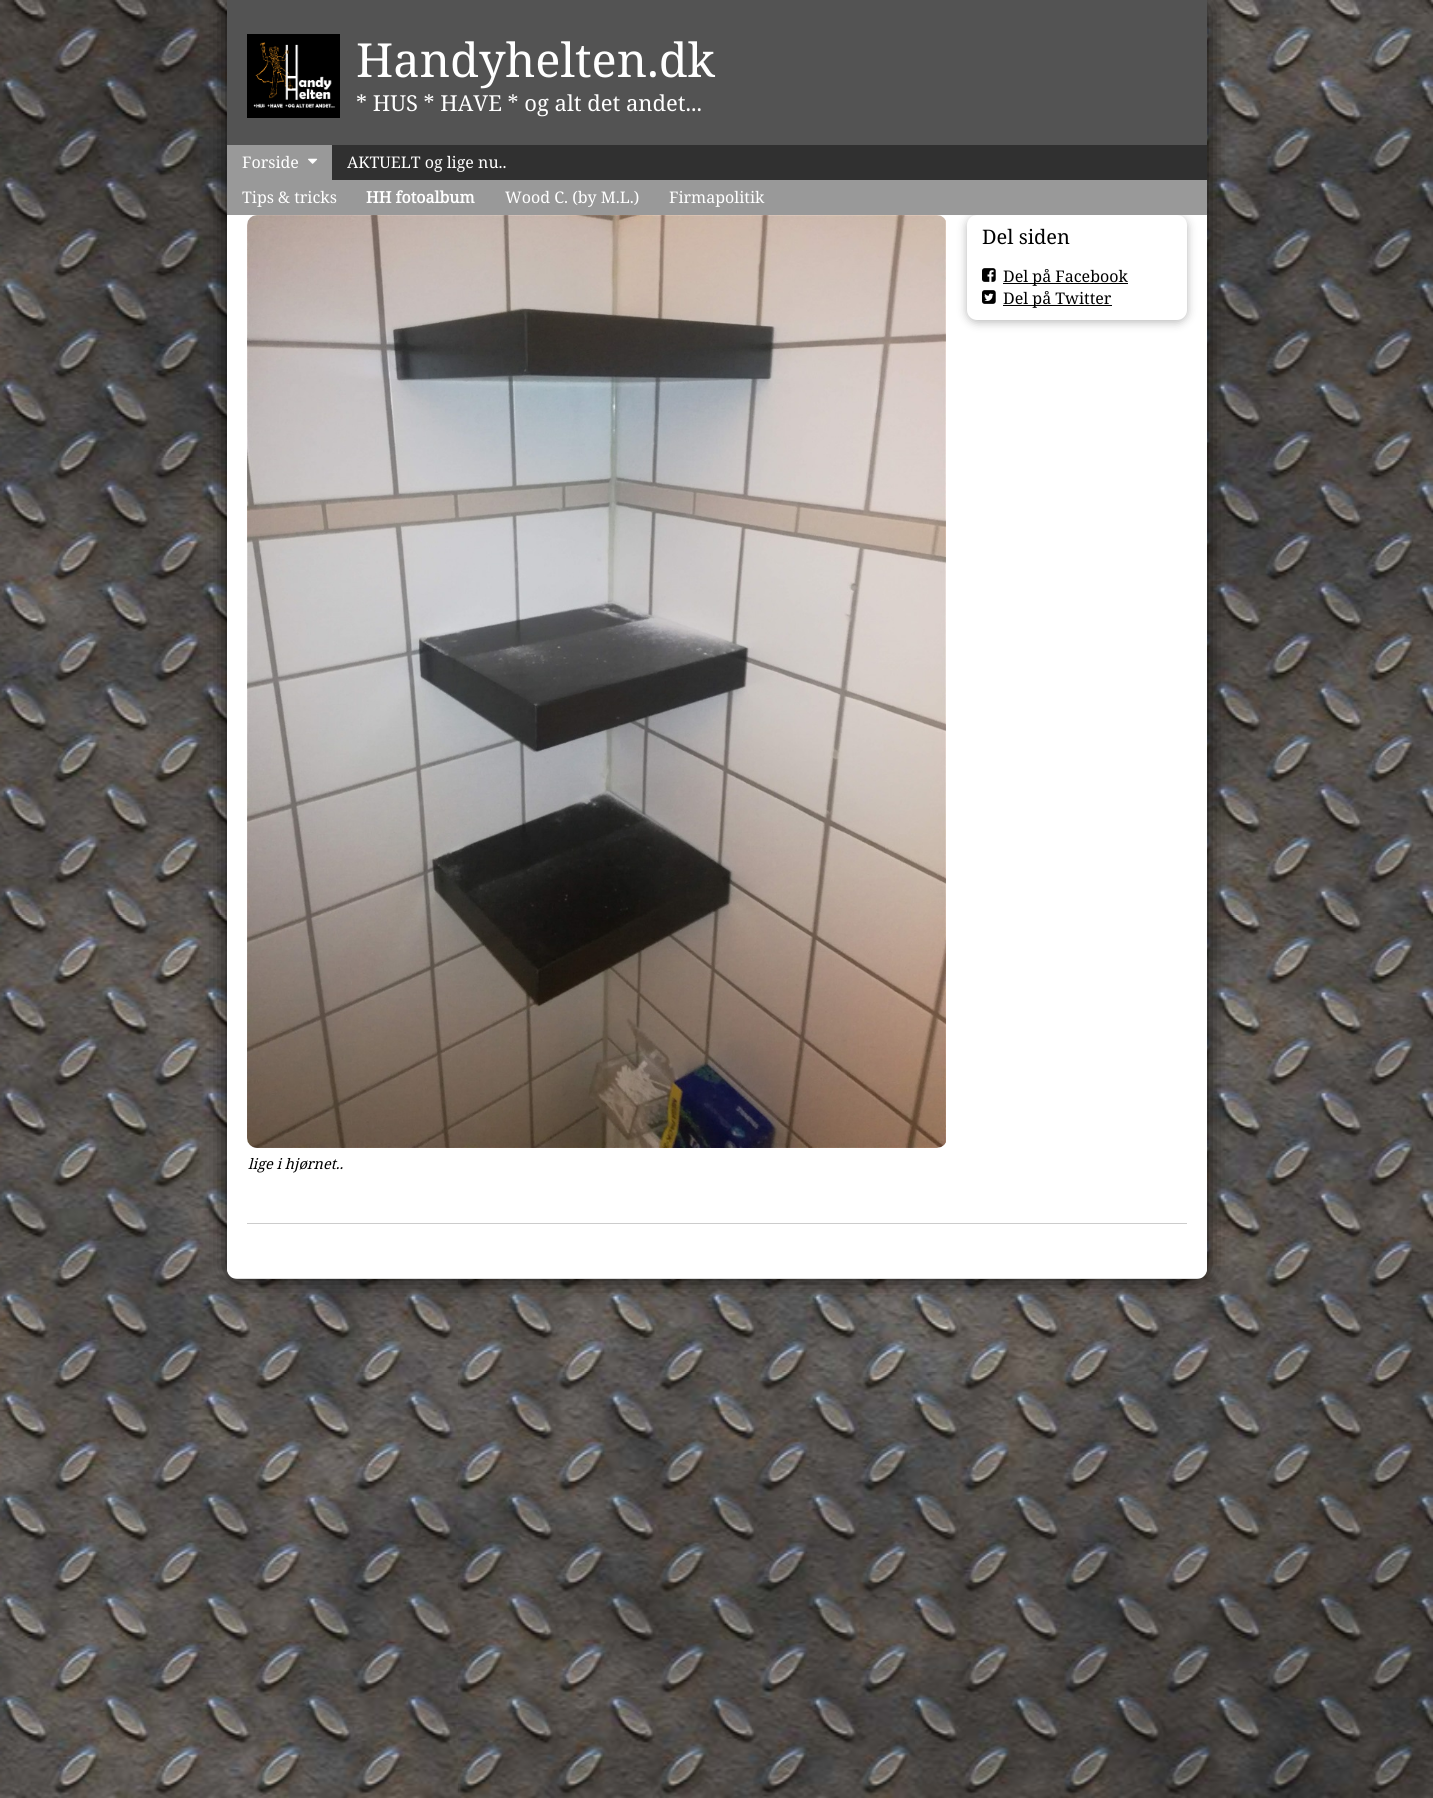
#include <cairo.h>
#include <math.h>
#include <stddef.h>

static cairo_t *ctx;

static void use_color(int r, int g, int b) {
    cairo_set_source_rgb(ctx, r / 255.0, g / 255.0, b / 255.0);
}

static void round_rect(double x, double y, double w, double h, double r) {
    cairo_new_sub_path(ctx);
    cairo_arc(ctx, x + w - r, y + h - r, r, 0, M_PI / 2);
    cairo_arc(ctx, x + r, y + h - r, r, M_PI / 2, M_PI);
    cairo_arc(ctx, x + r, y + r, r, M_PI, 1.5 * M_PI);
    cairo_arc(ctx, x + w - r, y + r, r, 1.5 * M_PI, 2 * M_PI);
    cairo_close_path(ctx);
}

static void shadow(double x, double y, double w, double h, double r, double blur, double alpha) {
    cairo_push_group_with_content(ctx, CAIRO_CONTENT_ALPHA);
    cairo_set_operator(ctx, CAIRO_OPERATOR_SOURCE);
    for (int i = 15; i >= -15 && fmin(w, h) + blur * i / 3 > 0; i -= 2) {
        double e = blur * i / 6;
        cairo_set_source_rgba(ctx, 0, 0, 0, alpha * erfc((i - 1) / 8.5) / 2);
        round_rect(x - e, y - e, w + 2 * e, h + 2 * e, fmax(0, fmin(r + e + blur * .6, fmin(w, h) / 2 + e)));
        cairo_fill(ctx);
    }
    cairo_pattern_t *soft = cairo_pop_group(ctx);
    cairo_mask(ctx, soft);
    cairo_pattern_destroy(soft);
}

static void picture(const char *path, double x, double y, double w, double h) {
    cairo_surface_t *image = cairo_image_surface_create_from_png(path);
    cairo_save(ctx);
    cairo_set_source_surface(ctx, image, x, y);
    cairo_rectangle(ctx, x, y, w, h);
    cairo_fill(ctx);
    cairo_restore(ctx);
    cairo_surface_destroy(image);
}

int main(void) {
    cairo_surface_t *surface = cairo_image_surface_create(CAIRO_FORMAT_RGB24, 1433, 1798);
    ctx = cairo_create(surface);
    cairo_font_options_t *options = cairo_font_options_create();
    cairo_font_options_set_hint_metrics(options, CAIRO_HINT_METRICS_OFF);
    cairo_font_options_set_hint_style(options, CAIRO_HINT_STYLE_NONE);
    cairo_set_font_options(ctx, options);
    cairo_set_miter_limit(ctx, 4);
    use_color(255, 255, 255);
    cairo_paint(ctx);
    picture("img1.png", 0, 0, 1433, 1798);
    use_color(0, 0, 0);
    shadow(227, 0, 980, 1279, 10, 12, 0.8);
    use_color(255, 255, 255);
    cairo_new_path(ctx);
    cairo_move_to(ctx, 227, 0);
    cairo_line_to(ctx, 1207, 0);
    cairo_line_to(ctx, 1207, 1269);
    cairo_curve_to(ctx, 1207, 1274.5, 1202.5, 1279, 1197, 1279);
    cairo_line_to(ctx, 237, 1279);
    cairo_curve_to(ctx, 231.5, 1279, 227, 1274.5, 227, 1269);
    cairo_close_path(ctx);
    cairo_fill(ctx);
    cairo_set_source_rgba(ctx, 0, 0, 0, 0.15);
    cairo_rectangle(ctx, 232, 1278, 970, 1);
    cairo_fill(ctx);
    use_color(83, 83, 83);
    cairo_rectangle(ctx, 227, 0, 980, 145);
    cairo_fill(ctx);
    picture("img2.png", 247, 34, 93, 84);
    cairo_select_font_face(ctx, "Noto Serif", CAIRO_FONT_SLANT_NORMAL, CAIRO_FONT_WEIGHT_NORMAL);
    cairo_set_font_size(ctx, 47);
    use_color(255, 255, 255);
    cairo_move_to(ctx, 356, 77);
    cairo_show_text(ctx, "Handyhelten.dk");
    cairo_set_font_size(ctx, 22);
    cairo_move_to(ctx, 356, 111);
    cairo_show_text(ctx, "* HUS * HAVE * og alt det andet...");
    use_color(48, 48, 48);
    cairo_rectangle(ctx, 332, 145, 875, 35);
    cairo_fill(ctx);
    use_color(153, 153, 153);
    cairo_rectangle(ctx, 227, 145, 105, 35);
    cairo_fill(ctx);
    cairo_set_font_size(ctx, 16);
    use_color(255, 255, 255);
    cairo_move_to(ctx, 242, 168);
    cairo_show_text(ctx, "Forside");
    picture("img3.png", 308, 158, 10, 6);
    use_color(0, 0, 0);
    shadow(967, 217, 220, 105, 10, 5, 0.29);
    use_color(153, 153, 153);
    cairo_rectangle(ctx, 227, 180, 980, 35);
    cairo_fill(ctx);
    use_color(255, 255, 255);
    cairo_move_to(ctx, 242, 203);
    cairo_show_text(ctx, "Tips & tricks");
    cairo_select_font_face(ctx, "Noto Serif", CAIRO_FONT_SLANT_NORMAL, CAIRO_FONT_WEIGHT_BOLD);
    cairo_move_to(ctx, 366, 203);
    cairo_show_text(ctx, "HH fotoalbum");
    cairo_select_font_face(ctx, "Noto Serif", CAIRO_FONT_SLANT_NORMAL, CAIRO_FONT_WEIGHT_NORMAL);
    cairo_move_to(ctx, 505, 203);
    cairo_show_text(ctx, "Wood C. (by M.L.)");
    cairo_move_to(ctx, 669, 203);
    cairo_show_text(ctx, "Firmapolitik");
    cairo_move_to(ctx, 347, 168);
    cairo_show_text(ctx, "AKTUELT og lige nu..");
    round_rect(967, 215, 220, 105, 10);
    cairo_fill(ctx);
    cairo_set_font_size(ctx, 20);
    use_color(0, 0, 0);
    cairo_move_to(ctx, 982, 244);
    cairo_show_text(ctx, "Del siden");
    picture("img4.png", 982, 268, 14, 14);
    cairo_rectangle(ctx, 1003, 283, 125, 1);
    cairo_fill(ctx);
    cairo_set_font_size(ctx, 16);
    cairo_move_to(ctx, 1003, 282);
    cairo_show_text(ctx, "Del på Facebook");
    picture("img5.png", 982, 290, 14, 14);
    cairo_rectangle(ctx, 1003, 305, 109, 1);
    cairo_fill(ctx);
    cairo_move_to(ctx, 1003, 304);
    cairo_show_text(ctx, "Del på Twitter");
    picture("img6.png", 247, 215, 699, 933);
    cairo_select_font_face(ctx, "Noto Serif", CAIRO_FONT_SLANT_ITALIC, CAIRO_FONT_WEIGHT_NORMAL);
    cairo_set_font_size(ctx, 14.5);
    cairo_move_to(ctx, 248, 1169);
    cairo_show_text(ctx, "lige i hjørnet..");
    use_color(255, 255, 255);
    cairo_new_path(ctx);
    cairo_move_to(ctx, 227, 1223);
    cairo_line_to(ctx, 1207, 1223);
    cairo_line_to(ctx, 1207, 1268);
    cairo_curve_to(ctx, 1207, 1273.5, 1202.5, 1278, 1197, 1278);
    cairo_line_to(ctx, 237, 1278);
    cairo_curve_to(ctx, 231.5, 1278, 227, 1273.5, 227, 1268);
    cairo_close_path(ctx);
    cairo_fill(ctx);
    use_color(204, 204, 204);
    cairo_rectangle(ctx, 247, 1223, 940, 1);
    cairo_fill(ctx);
    cairo_surface_write_to_png(surface, "result.png");
    cairo_font_options_destroy(options);
    cairo_destroy(ctx);
    cairo_surface_destroy(surface);
    return 0;
}
